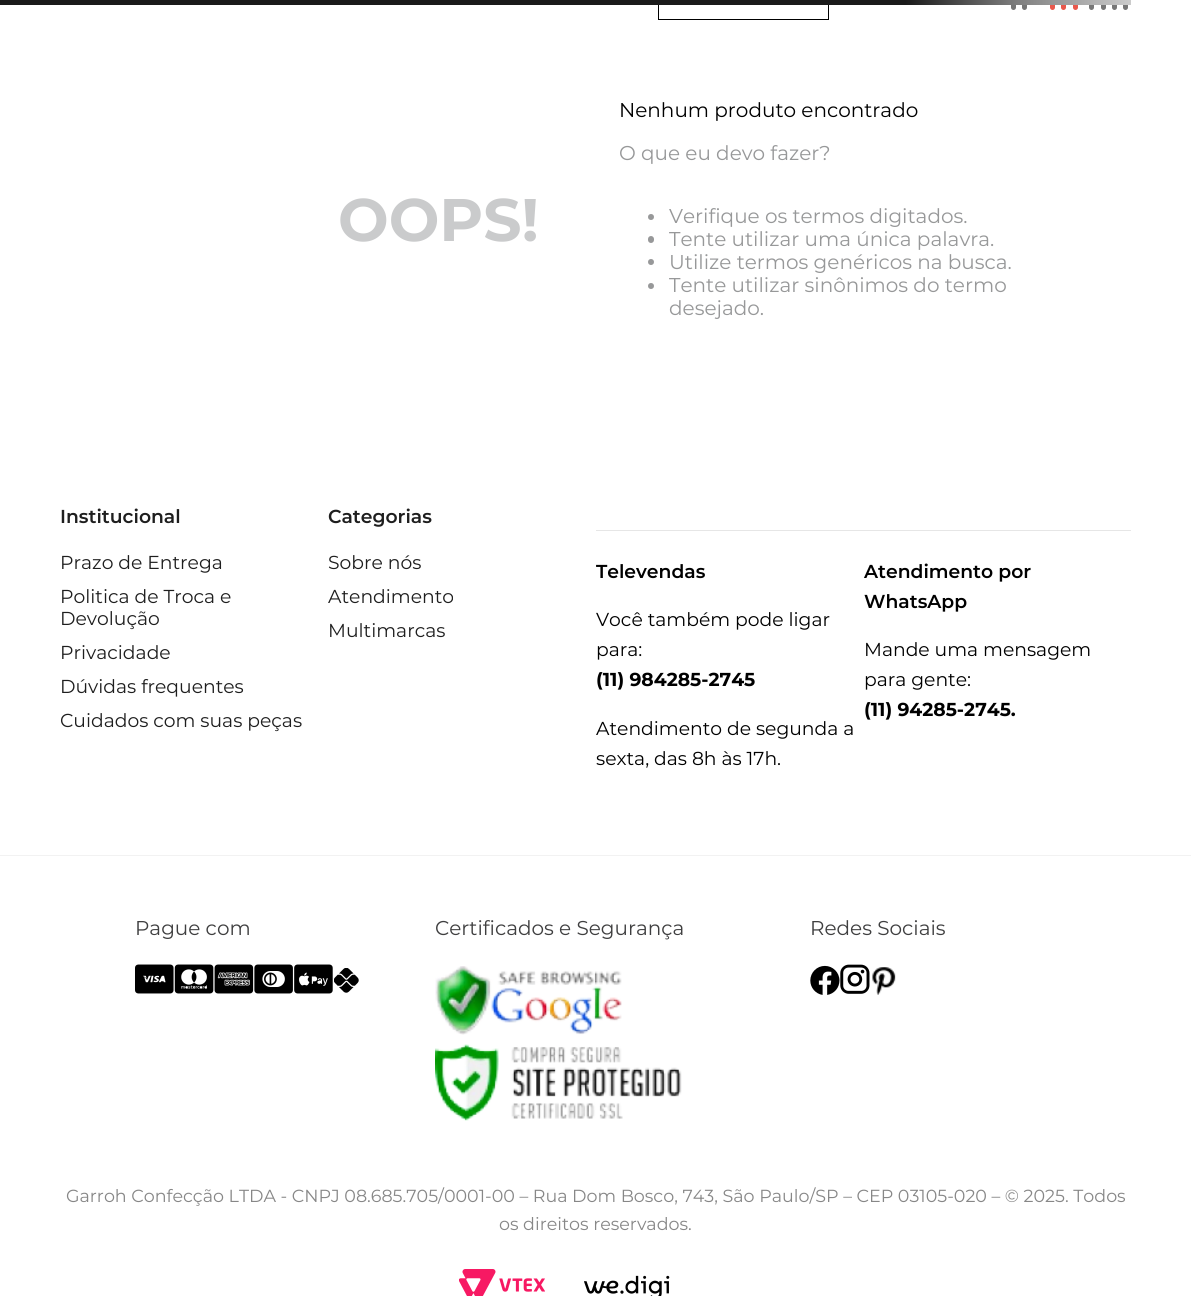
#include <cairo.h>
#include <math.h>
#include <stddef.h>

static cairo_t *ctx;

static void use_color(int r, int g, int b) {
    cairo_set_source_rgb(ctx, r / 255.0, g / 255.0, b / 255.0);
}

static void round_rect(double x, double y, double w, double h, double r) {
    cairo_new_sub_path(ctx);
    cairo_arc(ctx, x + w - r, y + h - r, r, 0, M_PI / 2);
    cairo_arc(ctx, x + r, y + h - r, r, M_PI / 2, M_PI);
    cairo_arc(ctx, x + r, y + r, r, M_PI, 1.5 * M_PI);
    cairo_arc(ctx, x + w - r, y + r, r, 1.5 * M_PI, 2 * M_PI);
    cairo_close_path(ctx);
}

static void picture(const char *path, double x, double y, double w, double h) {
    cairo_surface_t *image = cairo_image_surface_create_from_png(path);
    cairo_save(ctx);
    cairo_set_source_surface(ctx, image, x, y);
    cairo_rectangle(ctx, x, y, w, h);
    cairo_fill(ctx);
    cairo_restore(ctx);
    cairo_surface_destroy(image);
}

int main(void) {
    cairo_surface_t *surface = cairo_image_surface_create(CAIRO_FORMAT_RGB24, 1191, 1296);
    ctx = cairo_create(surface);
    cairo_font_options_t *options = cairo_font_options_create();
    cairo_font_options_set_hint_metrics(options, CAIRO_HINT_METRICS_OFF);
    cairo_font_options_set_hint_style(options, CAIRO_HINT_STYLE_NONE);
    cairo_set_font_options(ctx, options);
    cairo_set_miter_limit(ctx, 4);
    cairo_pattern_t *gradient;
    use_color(255, 255, 255);
    cairo_paint(ctx);
    cairo_rectangle(ctx, 658.5, -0.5, 170, 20);
    use_color(0, 0, 0);
    cairo_set_line_width(ctx, 1);
    cairo_stroke(ctx);
    use_color(118, 118, 118);
    round_rect(1011, -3, 5, 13, 2.5);
    cairo_fill(ctx);
    round_rect(1022, -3, 5, 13, 2.5);
    cairo_fill(ctx);
    use_color(233, 88, 76);
    round_rect(1050, -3, 5, 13, 2.5);
    cairo_fill(ctx);
    round_rect(1061, -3, 5, 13, 2.5);
    cairo_fill(ctx);
    round_rect(1073, -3, 5, 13, 2.5);
    cairo_fill(ctx);
    use_color(118, 118, 118);
    round_rect(1089, -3, 5, 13, 2.5);
    cairo_fill(ctx);
    round_rect(1101, -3, 5, 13, 2.5);
    cairo_fill(ctx);
    round_rect(1112, -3, 5, 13, 2.5);
    cairo_fill(ctx);
    round_rect(1123, -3, 5, 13, 2.5);
    cairo_fill(ctx);
    gradient = cairo_pattern_create_linear(0, 2.5, 1132, 2.5);
    cairo_pattern_add_color_stop_rgba(gradient, 0.8, 0.102, 0.102, 0.102, 1);
    cairo_pattern_add_color_stop_rgba(gradient, 0.9, 0.502, 0.502, 0.502, 1);
    cairo_pattern_add_color_stop_rgba(gradient, 1, 0.8, 0.8, 0.8, 1);
    cairo_set_source(ctx, gradient);
    cairo_pattern_destroy(gradient);
    cairo_rectangle(ctx, 0, 0, 1131, 5);
    cairo_fill(ctx);
    cairo_select_font_face(ctx, "Montserrat", CAIRO_FONT_SLANT_NORMAL, CAIRO_FONT_WEIGHT_BOLD);
    cairo_set_font_size(ctx, 60);
    use_color(202, 203, 204);
    cairo_move_to(ctx, 338, 241);
    cairo_show_text(ctx, "OOPS!");
    cairo_select_font_face(ctx, "Montserrat", CAIRO_FONT_SLANT_NORMAL, CAIRO_FONT_WEIGHT_NORMAL);
    cairo_set_font_size(ctx, 20);
    use_color(0, 0, 0);
    cairo_move_to(ctx, 619, 117);
    cairo_show_text(ctx, "Nenhum produto encontrado");
    use_color(151, 152, 153);
    cairo_move_to(ctx, 619, 160);
    cairo_show_text(ctx, "O que eu devo fazer?");
    cairo_new_path(ctx);
    cairo_arc(ctx, 651, 217, 3, 0, 2 * M_PI);
    cairo_fill(ctx);
    cairo_move_to(ctx, 669, 223);
    cairo_show_text(ctx, "Verifique os termos digitados.");
    round_rect(648, 236, 6, 7, 3);
    cairo_fill(ctx);
    cairo_move_to(ctx, 669, 246);
    cairo_show_text(ctx, "Tente utilizar uma única palavra.");
    cairo_new_path(ctx);
    cairo_arc(ctx, 651, 262, 3, 0, 2 * M_PI);
    cairo_fill(ctx);
    cairo_move_to(ctx, 669, 269);
    cairo_show_text(ctx, "Utilize termos genéricos na busca.");
    cairo_new_path(ctx);
    cairo_arc(ctx, 651, 286, 3, 0, 2 * M_PI);
    cairo_fill(ctx);
    cairo_move_to(ctx, 669, 292);
    cairo_show_text(ctx, "Tente utilizar sinônimos do termo");
    cairo_move_to(ctx, 669, 315);
    cairo_show_text(ctx, "desejado.");
    use_color(242, 242, 242);
    cairo_rectangle(ctx, 0, 855, 1191, 1);
    cairo_fill(ctx);
    cairo_select_font_face(ctx, "Montserrat SemiBold", CAIRO_FONT_SLANT_NORMAL, CAIRO_FONT_WEIGHT_NORMAL);
    cairo_set_font_size(ctx, 18.75);
    use_color(30, 30, 30);
    cairo_move_to(ctx, 60, 523);
    cairo_show_text(ctx, "Institucional");
    cairo_select_font_face(ctx, "Montserrat", CAIRO_FONT_SLANT_NORMAL, CAIRO_FONT_WEIGHT_NORMAL);
    cairo_move_to(ctx, 60, 569);
    cairo_show_text(ctx, "Prazo de Entrega");
    cairo_move_to(ctx, 60, 603);
    cairo_show_text(ctx, "Politica de Troca e");
    cairo_move_to(ctx, 60, 625);
    cairo_show_text(ctx, "Devolução");
    cairo_move_to(ctx, 60, 659);
    cairo_show_text(ctx, "Privacidade");
    cairo_move_to(ctx, 60, 693);
    cairo_show_text(ctx, "Dúvidas frequentes");
    cairo_move_to(ctx, 60, 727);
    cairo_show_text(ctx, "Cuidados com suas peças");
    cairo_select_font_face(ctx, "Montserrat SemiBold", CAIRO_FONT_SLANT_NORMAL, CAIRO_FONT_WEIGHT_NORMAL);
    cairo_move_to(ctx, 328, 523);
    cairo_show_text(ctx, "Categorias");
    cairo_select_font_face(ctx, "Montserrat", CAIRO_FONT_SLANT_NORMAL, CAIRO_FONT_WEIGHT_NORMAL);
    cairo_move_to(ctx, 328, 569);
    cairo_show_text(ctx, "Sobre nós");
    cairo_move_to(ctx, 328, 603);
    cairo_show_text(ctx, "Atendimento");
    cairo_move_to(ctx, 328, 637);
    cairo_show_text(ctx, "Multimarcas");
    use_color(230, 230, 230);
    cairo_rectangle(ctx, 596, 530, 535, 1);
    cairo_fill(ctx);
    cairo_select_font_face(ctx, "Montserrat SemiBold", CAIRO_FONT_SLANT_NORMAL, CAIRO_FONT_WEIGHT_NORMAL);
    use_color(0, 0, 0);
    cairo_move_to(ctx, 596, 578);
    cairo_show_text(ctx, "Televendas");
    cairo_select_font_face(ctx, "Montserrat", CAIRO_FONT_SLANT_NORMAL, CAIRO_FONT_WEIGHT_NORMAL);
    cairo_move_to(ctx, 596, 626);
    cairo_show_text(ctx, "Você também pode ligar");
    cairo_move_to(ctx, 596, 656);
    cairo_show_text(ctx, "para:");
    cairo_select_font_face(ctx, "Montserrat", CAIRO_FONT_SLANT_NORMAL, CAIRO_FONT_WEIGHT_BOLD);
    cairo_move_to(ctx, 596, 686);
    cairo_show_text(ctx, "(11) 984285-2745");
    cairo_select_font_face(ctx, "Montserrat", CAIRO_FONT_SLANT_NORMAL, CAIRO_FONT_WEIGHT_NORMAL);
    cairo_move_to(ctx, 596, 735);
    cairo_show_text(ctx, "Atendimento de segunda a");
    cairo_move_to(ctx, 596, 765);
    cairo_show_text(ctx, "sexta, das 8h às 17h.");
    cairo_select_font_face(ctx, "Montserrat SemiBold", CAIRO_FONT_SLANT_NORMAL, CAIRO_FONT_WEIGHT_NORMAL);
    cairo_move_to(ctx, 864, 578);
    cairo_show_text(ctx, "Atendimento por");
    cairo_move_to(ctx, 864, 608);
    cairo_show_text(ctx, "WhatsApp");
    cairo_select_font_face(ctx, "Montserrat", CAIRO_FONT_SLANT_NORMAL, CAIRO_FONT_WEIGHT_NORMAL);
    cairo_move_to(ctx, 864, 656);
    cairo_show_text(ctx, "Mande uma mensagem");
    cairo_move_to(ctx, 864, 686);
    cairo_show_text(ctx, "para gente:");
    cairo_select_font_face(ctx, "Montserrat", CAIRO_FONT_SLANT_NORMAL, CAIRO_FONT_WEIGHT_BOLD);
    cairo_move_to(ctx, 864, 716);
    cairo_show_text(ctx, "(11) 94285-2745.");
    cairo_select_font_face(ctx, "Montserrat", CAIRO_FONT_SLANT_NORMAL, CAIRO_FONT_WEIGHT_NORMAL);
    cairo_set_font_size(ctx, 20);
    use_color(63, 63, 64);
    cairo_move_to(ctx, 135, 935);
    cairo_show_text(ctx, "Pague com");
    picture("img1.png", 135, 964, 39, 30);
    picture("img2.png", 174, 964, 40, 30);
    picture("img3.png", 214, 964, 40, 30);
    picture("img4.png", 254, 964, 39, 30);
    picture("img5.png", 294, 964, 39, 30);
    picture("img6.png", 334, 968, 25, 25);
    cairo_move_to(ctx, 435, 935);
    cairo_show_text(ctx, "Certificados e Segurança");
    picture("img7.png", 435, 966, 187, 69);
    picture("img8.png", 435, 1044, 247, 77);
    cairo_move_to(ctx, 810, 935);
    cairo_show_text(ctx, "Redes Sociais");
    picture("img9.png", 810, 965, 30, 30);
    picture("img10.png", 840, 964, 30, 30);
    picture("img11.png", 872, 967, 24, 28);
    cairo_set_font_size(ctx, 17.5);
    use_color(135, 135, 135);
    cairo_move_to(ctx, 66, 1202);
    cairo_show_text(ctx, "Garroh Confecção LTDA - CNPJ 08.685.705/0001-00 – Rua Dom Bosco, 743, São Paulo/SP – CEP 03105-020 – © 2025. Todos");
    cairo_move_to(ctx, 499, 1230);
    cairo_show_text(ctx, "os direitos reservados.");
    picture("img12.png", 459, 1269, 86, 27);
    picture("img13.png", 584, 1275, 86, 21);
    cairo_surface_write_to_png(surface, "result.png");
    cairo_font_options_destroy(options);
    cairo_destroy(ctx);
    cairo_surface_destroy(surface);
    return 0;
}
